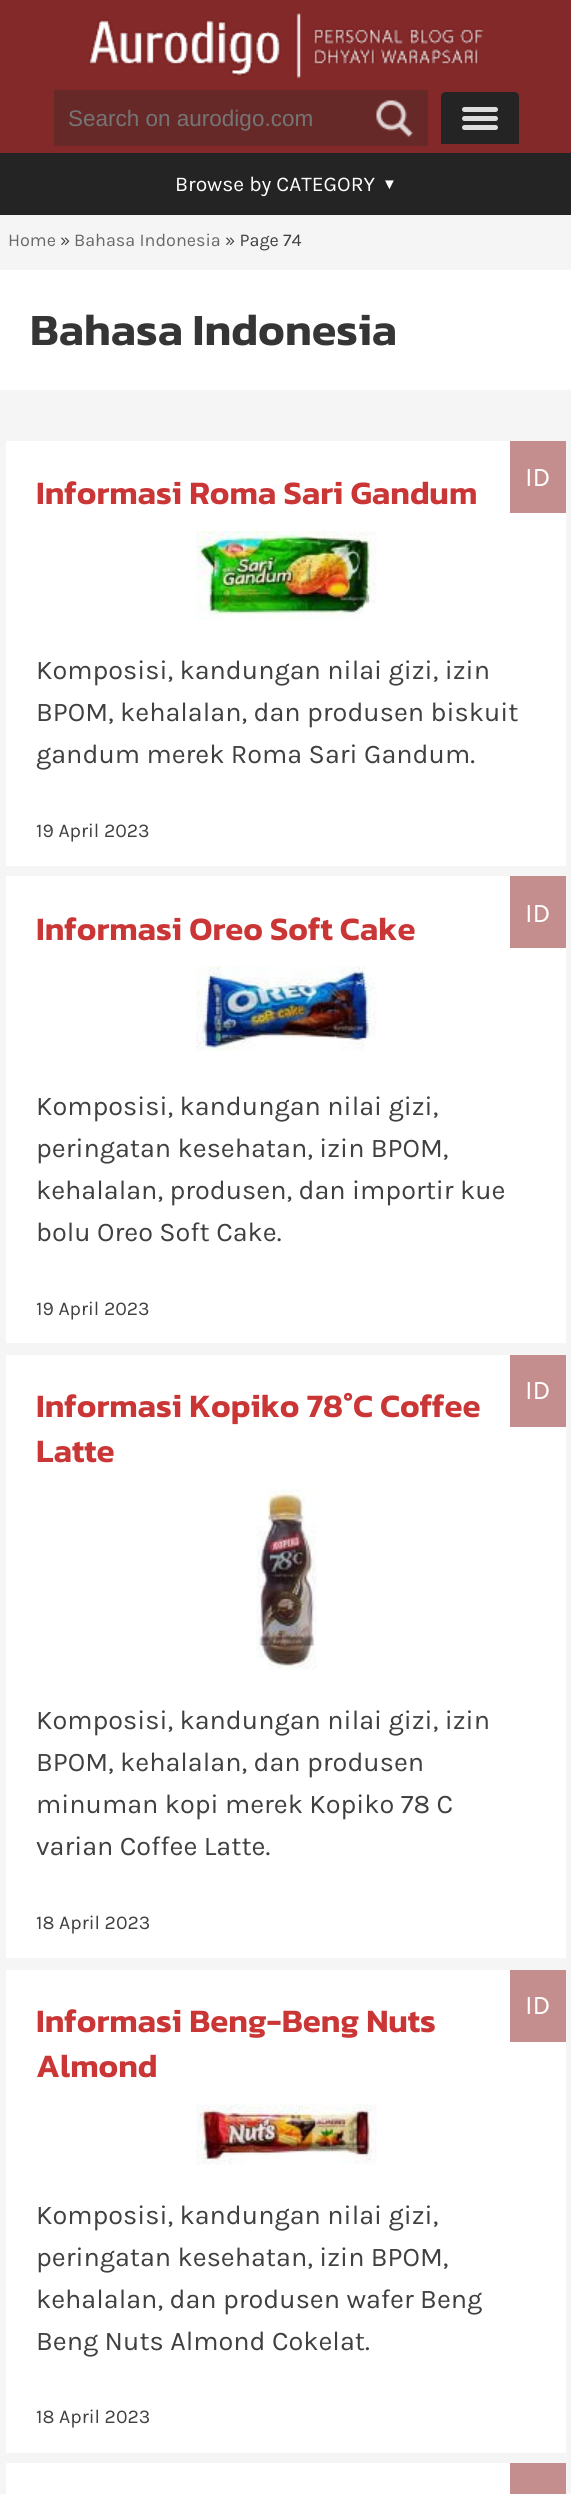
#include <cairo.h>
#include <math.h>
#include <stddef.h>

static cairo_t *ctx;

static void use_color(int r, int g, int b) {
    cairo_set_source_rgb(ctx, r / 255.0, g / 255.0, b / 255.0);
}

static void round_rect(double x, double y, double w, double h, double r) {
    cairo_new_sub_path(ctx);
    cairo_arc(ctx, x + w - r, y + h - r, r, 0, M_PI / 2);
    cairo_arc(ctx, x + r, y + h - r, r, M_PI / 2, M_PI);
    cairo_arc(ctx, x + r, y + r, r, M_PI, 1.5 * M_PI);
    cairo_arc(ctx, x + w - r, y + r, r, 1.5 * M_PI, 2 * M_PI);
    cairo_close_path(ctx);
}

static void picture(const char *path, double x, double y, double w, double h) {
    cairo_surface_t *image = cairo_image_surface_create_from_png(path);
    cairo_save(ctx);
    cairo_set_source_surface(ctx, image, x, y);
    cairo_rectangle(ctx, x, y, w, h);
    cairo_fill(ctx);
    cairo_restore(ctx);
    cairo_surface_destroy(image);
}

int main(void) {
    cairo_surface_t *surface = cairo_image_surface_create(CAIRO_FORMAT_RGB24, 571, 2494);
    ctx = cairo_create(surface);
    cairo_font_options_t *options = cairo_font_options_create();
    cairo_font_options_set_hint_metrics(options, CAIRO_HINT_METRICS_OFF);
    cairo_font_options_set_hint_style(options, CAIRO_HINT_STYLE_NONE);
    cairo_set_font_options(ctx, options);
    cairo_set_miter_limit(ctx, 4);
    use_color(245, 245, 245);
    cairo_paint(ctx);
    use_color(36, 36, 36);
    cairo_rectangle(ctx, 0, 153, 571, 62);
    cairo_fill(ctx);
    use_color(132, 41, 41);
    cairo_rectangle(ctx, 0, 0, 571, 153);
    cairo_fill(ctx);
    picture("img1.png", 88, 12, 396, 68);
    use_color(103, 40, 40);
    cairo_rectangle(ctx, 54, 90, 374, 56);
    cairo_fill(ctx);
    cairo_select_font_face(ctx, "Liberation Sans", CAIRO_FONT_SLANT_NORMAL, CAIRO_FONT_WEIGHT_NORMAL);
    cairo_set_font_size(ctx, 22.5);
    use_color(117, 117, 117);
    cairo_move_to(ctx, 68, 126);
    cairo_show_text(ctx, "Search on aurodigo.com");
    picture("img2.png", 376, 100, 37, 37);
    use_color(36, 36, 36);
    cairo_new_path(ctx);
    cairo_move_to(ctx, 446, 92);
    cairo_line_to(ctx, 514, 92);
    cairo_curve_to(ctx, 517, 92, 519, 94, 519, 97);
    cairo_line_to(ctx, 519, 144);
    cairo_line_to(ctx, 441, 144);
    cairo_line_to(ctx, 441, 97);
    cairo_curve_to(ctx, 441, 94, 443, 92, 446, 92);
    cairo_close_path(ctx);
    cairo_fill(ctx);
    use_color(221, 221, 221);
    round_rect(462, 107, 36, 5, 2.5);
    cairo_fill(ctx);
    round_rect(462, 116, 36, 5, 2.5);
    cairo_fill(ctx);
    round_rect(462, 125, 36, 5, 2.5);
    cairo_fill(ctx);
    cairo_select_font_face(ctx, "Karla", CAIRO_FONT_SLANT_NORMAL, CAIRO_FONT_WEIGHT_NORMAL);
    cairo_set_font_size(ctx, 21);
    use_color(255, 255, 255);
    cairo_move_to(ctx, 175, 191);
    cairo_show_text(ctx, "Browse by CATEGORY");
    cairo_select_font_face(ctx, "Liberation Sans", CAIRO_FONT_SLANT_NORMAL, CAIRO_FONT_WEIGHT_NORMAL);
    cairo_set_font_size(ctx, 15);
    cairo_move_to(ctx, 382, 189);
    cairo_show_text(ctx, "▼");
    cairo_select_font_face(ctx, "Karla", CAIRO_FONT_SLANT_NORMAL, CAIRO_FONT_WEIGHT_NORMAL);
    cairo_set_font_size(ctx, 18);
    use_color(105, 105, 105);
    cairo_move_to(ctx, 8, 246);
    cairo_show_text(ctx, "Home");
    use_color(64, 64, 64);
    cairo_move_to(ctx, 60, 246);
    cairo_show_text(ctx, "»");
    use_color(105, 105, 105);
    cairo_move_to(ctx, 74, 246);
    cairo_show_text(ctx, "Bahasa Indonesia");
    use_color(64, 64, 64);
    cairo_move_to(ctx, 225, 246);
    cairo_show_text(ctx, "» Page 74");
    use_color(255, 255, 255);
    cairo_rectangle(ctx, 0, 270, 571, 120);
    cairo_fill(ctx);
    cairo_select_font_face(ctx, "Kanit SemiBold", CAIRO_FONT_SLANT_NORMAL, CAIRO_FONT_WEIGHT_NORMAL);
    cairo_set_font_size(ctx, 45);
    use_color(53, 53, 53);
    cairo_move_to(ctx, 30, 345);
    cairo_show_text(ctx, "Bahasa Indonesia");
    use_color(255, 255, 255);
    cairo_rectangle(ctx, 6, 441, 560, 425);
    cairo_fill(ctx);
    use_color(196, 142, 142);
    cairo_rectangle(ctx, 510, 441, 56, 72);
    cairo_fill(ctx);
    cairo_select_font_face(ctx, "Karla", CAIRO_FONT_SLANT_NORMAL, CAIRO_FONT_WEIGHT_NORMAL);
    cairo_set_font_size(ctx, 27);
    use_color(255, 255, 255);
    cairo_move_to(ctx, 525, 486);
    cairo_show_text(ctx, "ID");
    cairo_select_font_face(ctx, "Kanit SemiBold", CAIRO_FONT_SLANT_NORMAL, CAIRO_FONT_WEIGHT_NORMAL);
    cairo_set_font_size(ctx, 33);
    use_color(202, 53, 53);
    cairo_move_to(ctx, 36, 504);
    cairo_show_text(ctx, "Informasi Roma Sari Gandum");
    picture("img3.png", 196, 531, 181, 89);
    cairo_select_font_face(ctx, "Karla", CAIRO_FONT_SLANT_NORMAL, CAIRO_FONT_WEIGHT_NORMAL);
    cairo_set_font_size(ctx, 27);
    use_color(64, 64, 64);
    cairo_move_to(ctx, 36, 679);
    cairo_show_text(ctx, "Komposisi, kandungan nilai gizi, izin");
    cairo_move_to(ctx, 36, 721);
    cairo_show_text(ctx, "BPOM, kehalalan, dan produsen biskuit");
    cairo_move_to(ctx, 36, 763);
    cairo_show_text(ctx, "gandum merek Roma Sari Gandum.");
    cairo_set_font_size(ctx, 19.5);
    cairo_move_to(ctx, 36, 837);
    cairo_show_text(ctx, "19 April 2023");
    use_color(255, 255, 255);
    cairo_rectangle(ctx, 6, 876, 560, 467);
    cairo_fill(ctx);
    use_color(196, 142, 142);
    cairo_rectangle(ctx, 510, 876, 56, 72);
    cairo_fill(ctx);
    cairo_set_font_size(ctx, 27);
    use_color(255, 255, 255);
    cairo_move_to(ctx, 525, 922);
    cairo_show_text(ctx, "ID");
    cairo_select_font_face(ctx, "Kanit SemiBold", CAIRO_FONT_SLANT_NORMAL, CAIRO_FONT_WEIGHT_NORMAL);
    cairo_set_font_size(ctx, 33);
    use_color(202, 53, 53);
    cairo_move_to(ctx, 36, 940);
    cairo_show_text(ctx, "Informasi Oreo Soft Cake");
    picture("img4.png", 196, 966, 181, 85);
    cairo_select_font_face(ctx, "Karla", CAIRO_FONT_SLANT_NORMAL, CAIRO_FONT_WEIGHT_NORMAL);
    cairo_set_font_size(ctx, 27);
    use_color(64, 64, 64);
    cairo_move_to(ctx, 36, 1115);
    cairo_show_text(ctx, "Komposisi, kandungan nilai gizi,");
    cairo_move_to(ctx, 36, 1157);
    cairo_show_text(ctx, "peringatan kesehatan, izin BPOM,");
    cairo_move_to(ctx, 36, 1199);
    cairo_show_text(ctx, "kehalalan, produsen, dan importir kue");
    cairo_move_to(ctx, 36, 1241);
    cairo_show_text(ctx, "bolu Oreo Soft Cake.");
    cairo_set_font_size(ctx, 19.5);
    cairo_move_to(ctx, 36, 1315);
    cairo_show_text(ctx, "19 April 2023");
    use_color(255, 255, 255);
    cairo_rectangle(ctx, 6, 1355, 560, 603);
    cairo_fill(ctx);
    cairo_select_font_face(ctx, "Kanit SemiBold", CAIRO_FONT_SLANT_NORMAL, CAIRO_FONT_WEIGHT_NORMAL);
    cairo_set_font_size(ctx, 33);
    use_color(202, 53, 53);
    cairo_move_to(ctx, 36, 1417);
    cairo_show_text(ctx, "Informasi Kopiko 78°C Coffee");
    cairo_move_to(ctx, 36, 1462);
    cairo_show_text(ctx, "Latte");
    use_color(196, 142, 142);
    cairo_rectangle(ctx, 510, 1355, 56, 72);
    cairo_fill(ctx);
    cairo_select_font_face(ctx, "Karla", CAIRO_FONT_SLANT_NORMAL, CAIRO_FONT_WEIGHT_NORMAL);
    cairo_set_font_size(ctx, 27);
    use_color(255, 255, 255);
    cairo_move_to(ctx, 525, 1399);
    cairo_show_text(ctx, "ID");
    picture("img5.png", 256, 1489, 61, 181);
    use_color(64, 64, 64);
    cairo_move_to(ctx, 36, 1729);
    cairo_show_text(ctx, "Komposisi, kandungan nilai gizi, izin");
    cairo_move_to(ctx, 36, 1771);
    cairo_show_text(ctx, "BPOM, kehalalan, dan produsen");
    cairo_move_to(ctx, 36, 1813);
    cairo_show_text(ctx, "minuman kopi merek Kopiko 78 C");
    cairo_move_to(ctx, 36, 1855);
    cairo_show_text(ctx, "varian Coffee Latte.");
    cairo_set_font_size(ctx, 19.5);
    cairo_move_to(ctx, 36, 1929);
    cairo_show_text(ctx, "18 April 2023");
    use_color(255, 255, 255);
    cairo_rectangle(ctx, 6, 1970, 560, 483);
    cairo_fill(ctx);
    use_color(196, 142, 142);
    cairo_rectangle(ctx, 510, 1970, 56, 72);
    cairo_fill(ctx);
    cairo_set_font_size(ctx, 27);
    use_color(255, 255, 255);
    cairo_move_to(ctx, 525, 2014);
    cairo_show_text(ctx, "ID");
    cairo_select_font_face(ctx, "Kanit SemiBold", CAIRO_FONT_SLANT_NORMAL, CAIRO_FONT_WEIGHT_NORMAL);
    cairo_set_font_size(ctx, 33);
    use_color(202, 53, 53);
    cairo_move_to(ctx, 36, 2032);
    cairo_show_text(ctx, "Informasi Beng-Beng Nuts");
    cairo_move_to(ctx, 36, 2077);
    cairo_show_text(ctx, "Almond");
    picture("img6.png", 196, 2104, 181, 61);
    cairo_select_font_face(ctx, "Karla", CAIRO_FONT_SLANT_NORMAL, CAIRO_FONT_WEIGHT_NORMAL);
    cairo_set_font_size(ctx, 27);
    use_color(64, 64, 64);
    cairo_move_to(ctx, 36, 2224);
    cairo_show_text(ctx, "Komposisi, kandungan nilai gizi,");
    cairo_move_to(ctx, 36, 2266);
    cairo_show_text(ctx, "peringatan kesehatan, izin BPOM,");
    cairo_move_to(ctx, 36, 2308);
    cairo_show_text(ctx, "kehalalan, dan produsen wafer Beng");
    cairo_move_to(ctx, 36, 2350);
    cairo_show_text(ctx, "Beng Nuts Almond Cokelat.");
    cairo_set_font_size(ctx, 19.5);
    cairo_move_to(ctx, 36, 2423);
    cairo_show_text(ctx, "18 April 2023");
    use_color(255, 255, 255);
    cairo_rectangle(ctx, 6, 2463, 504, 31);
    cairo_fill(ctx);
    use_color(196, 142, 142);
    cairo_rectangle(ctx, 510, 2463, 56, 31);
    cairo_fill(ctx);
    cairo_surface_write_to_png(surface, "result.png");
    cairo_font_options_destroy(options);
    cairo_destroy(ctx);
    cairo_surface_destroy(surface);
    return 0;
}
